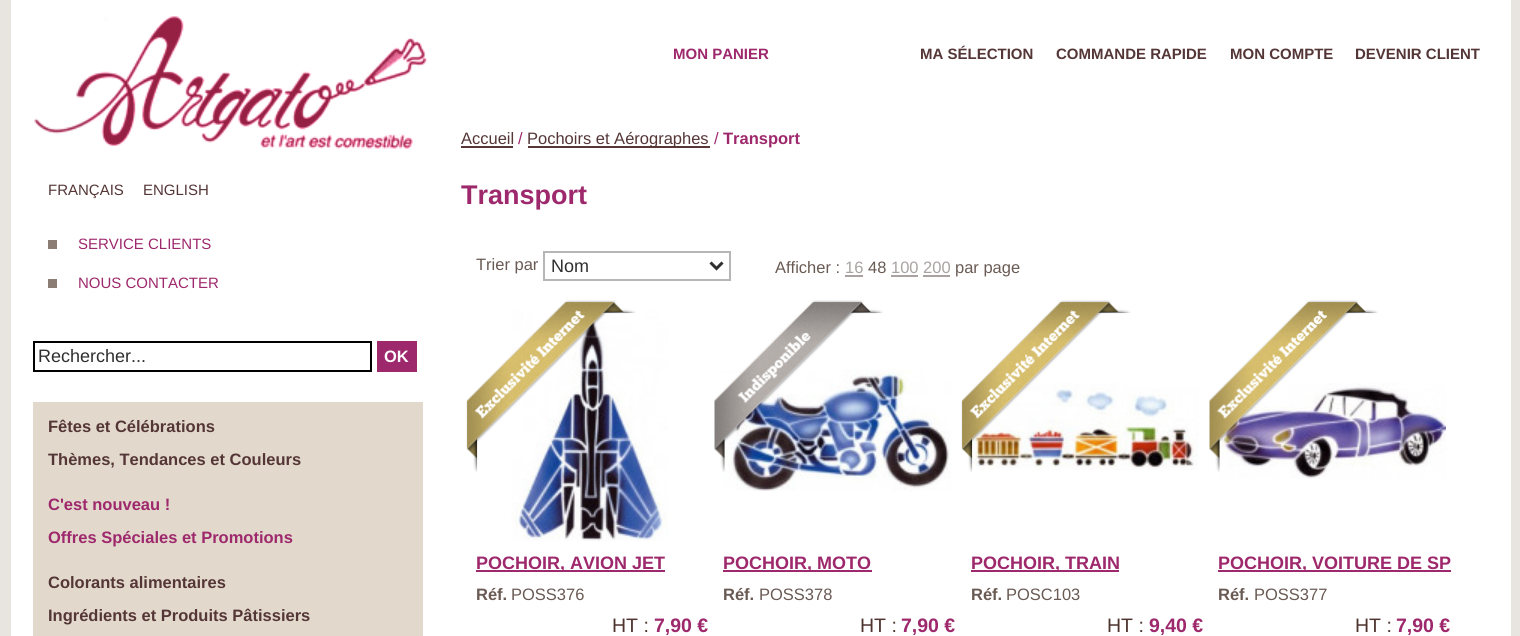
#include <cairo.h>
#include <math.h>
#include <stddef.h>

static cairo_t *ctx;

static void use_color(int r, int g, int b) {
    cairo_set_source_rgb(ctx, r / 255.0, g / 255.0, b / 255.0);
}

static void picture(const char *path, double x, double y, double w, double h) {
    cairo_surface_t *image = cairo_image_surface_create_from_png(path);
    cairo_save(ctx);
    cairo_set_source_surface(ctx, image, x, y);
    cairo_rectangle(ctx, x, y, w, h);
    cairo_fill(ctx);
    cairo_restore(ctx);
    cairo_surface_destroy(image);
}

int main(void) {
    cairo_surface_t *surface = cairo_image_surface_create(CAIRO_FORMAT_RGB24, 1520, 636);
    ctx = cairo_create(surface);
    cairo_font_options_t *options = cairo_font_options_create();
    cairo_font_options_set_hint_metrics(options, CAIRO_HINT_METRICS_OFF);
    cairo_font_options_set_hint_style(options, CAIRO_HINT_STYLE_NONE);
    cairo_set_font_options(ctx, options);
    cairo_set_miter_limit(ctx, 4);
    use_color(232, 228, 224);
    cairo_paint(ctx);
    use_color(255, 255, 255);
    cairo_rectangle(ctx, 11, 0, 1500, 636);
    cairo_fill(ctx);
    picture("img1.png", 34, 16, 393, 133);
    cairo_select_font_face(ctx, "Liberation Sans", CAIRO_FONT_SLANT_NORMAL, CAIRO_FONT_WEIGHT_NORMAL);
    cairo_set_font_size(ctx, 15);
    use_color(85, 54, 55);
    cairo_move_to(ctx, 48, 195);
    cairo_show_text(ctx, "FRANÇAIS");
    cairo_move_to(ctx, 143, 195);
    cairo_show_text(ctx, "ENGLISH");
    use_color(139, 125, 116);
    cairo_rectangle(ctx, 48, 240, 9, 9);
    cairo_fill(ctx);
    use_color(158, 40, 108);
    cairo_move_to(ctx, 78, 249);
    cairo_show_text(ctx, "SERVICE CLIENTS");
    use_color(139, 125, 116);
    cairo_rectangle(ctx, 48, 279, 9, 9);
    cairo_fill(ctx);
    use_color(158, 40, 108);
    cairo_move_to(ctx, 78, 288);
    cairo_show_text(ctx, "NOUS CONTACTER");
    cairo_rectangle(ctx, 34, 342, 337, 29);
    use_color(0, 0, 0);
    cairo_stroke(ctx);
    cairo_set_font_size(ctx, 18);
    use_color(47, 47, 47);
    cairo_move_to(ctx, 38, 362);
    cairo_show_text(ctx, "Rechercher...");
    use_color(158, 40, 108);
    cairo_rectangle(ctx, 377, 341, 40, 31);
    cairo_fill(ctx);
    cairo_select_font_face(ctx, "Liberation Sans", CAIRO_FONT_SLANT_NORMAL, CAIRO_FONT_WEIGHT_BOLD);
    cairo_set_font_size(ctx, 16.5);
    use_color(255, 255, 255);
    cairo_move_to(ctx, 384, 362);
    cairo_show_text(ctx, "OK");
    use_color(226, 217, 204);
    cairo_rectangle(ctx, 33, 402, 390, 234);
    cairo_fill(ctx);
    use_color(85, 54, 55);
    cairo_move_to(ctx, 48, 432);
    cairo_show_text(ctx, "Fêtes et Célébrations");
    cairo_move_to(ctx, 48, 465);
    cairo_show_text(ctx, "Thèmes, Tendances et Couleurs");
    use_color(158, 40, 108);
    cairo_move_to(ctx, 48, 510);
    cairo_show_text(ctx, "C'est nouveau !");
    cairo_move_to(ctx, 48, 543);
    cairo_show_text(ctx, "Offres Spéciales et Promotions");
    use_color(85, 54, 55);
    cairo_move_to(ctx, 48, 588);
    cairo_show_text(ctx, "Colorants alimentaires");
    cairo_move_to(ctx, 48, 621);
    cairo_show_text(ctx, "Ingrédients et Produits Pâtissiers");
    cairo_set_font_size(ctx, 15);
    use_color(158, 40, 108);
    cairo_move_to(ctx, 673, 59);
    cairo_show_text(ctx, "MON PANIER");
    use_color(85, 54, 55);
    cairo_move_to(ctx, 920, 59);
    cairo_show_text(ctx, "MA SÉLECTION");
    cairo_move_to(ctx, 1056, 59);
    cairo_show_text(ctx, "COMMANDE RAPIDE");
    cairo_move_to(ctx, 1230, 59);
    cairo_show_text(ctx, "MON COMPTE");
    cairo_move_to(ctx, 1355, 59);
    cairo_show_text(ctx, "DEVENIR CLIENT");
    cairo_select_font_face(ctx, "Liberation Sans", CAIRO_FONT_SLANT_NORMAL, CAIRO_FONT_WEIGHT_NORMAL);
    cairo_set_font_size(ctx, 16.5);
    cairo_move_to(ctx, 461, 144);
    cairo_show_text(ctx, "Accueil");
    use_color(88, 54, 54);
    cairo_rectangle(ctx, 461, 146, 52, 2);
    cairo_fill(ctx);
    use_color(158, 40, 108);
    cairo_move_to(ctx, 518, 144);
    cairo_show_text(ctx, "/");
    use_color(88, 54, 54);
    cairo_rectangle(ctx, 528, 146, 182, 2);
    cairo_fill(ctx);
    use_color(85, 54, 55);
    cairo_move_to(ctx, 527, 144);
    cairo_show_text(ctx, "Pochoirs et Aérographes");
    use_color(158, 40, 108);
    cairo_move_to(ctx, 714, 144);
    cairo_show_text(ctx, "/");
    cairo_select_font_face(ctx, "Liberation Sans", CAIRO_FONT_SLANT_NORMAL, CAIRO_FONT_WEIGHT_BOLD);
    cairo_move_to(ctx, 723, 144);
    cairo_show_text(ctx, "Transport");
    cairo_set_font_size(ctx, 27);
    cairo_move_to(ctx, 461, 204);
    cairo_show_text(ctx, "Transport");
    cairo_select_font_face(ctx, "Liberation Sans", CAIRO_FONT_SLANT_NORMAL, CAIRO_FONT_WEIGHT_NORMAL);
    cairo_set_font_size(ctx, 16.5);
    use_color(105, 90, 83);
    cairo_move_to(ctx, 476, 270);
    cairo_show_text(ctx, "Trier par");
    cairo_rectangle(ctx, 544, 252, 186, 28);
    use_color(182, 182, 182);
    cairo_stroke(ctx);
    cairo_new_path(ctx);
    cairo_move_to(ctx, 710.5, 262.5);
    cairo_line_to(ctx, 716.5, 268.5);
    cairo_line_to(ctx, 722.5, 262.5);
    use_color(47, 47, 47);
    cairo_set_line_width(ctx, 3);
    cairo_stroke(ctx);
    cairo_set_font_size(ctx, 18);
    cairo_move_to(ctx, 551, 272);
    cairo_show_text(ctx, "Nom");
    cairo_set_font_size(ctx, 16.5);
    use_color(105, 90, 83);
    cairo_move_to(ctx, 775, 273);
    cairo_show_text(ctx, "Afficher :");
    use_color(169, 162, 160);
    cairo_move_to(ctx, 845, 273);
    cairo_show_text(ctx, "16");
    cairo_rectangle(ctx, 845, 275, 18, 2);
    cairo_fill(ctx);
    use_color(105, 90, 83);
    cairo_move_to(ctx, 868, 273);
    cairo_show_text(ctx, "48");
    use_color(169, 162, 160);
    cairo_move_to(ctx, 891, 273);
    cairo_show_text(ctx, "100 200");
    cairo_rectangle(ctx, 891, 275, 27, 2);
    cairo_fill(ctx);
    use_color(105, 90, 83);
    cairo_move_to(ctx, 955, 273);
    cairo_show_text(ctx, "par page");
    use_color(169, 162, 160);
    cairo_rectangle(ctx, 923, 275, 27, 2);
    cairo_fill(ctx);
    picture("img3.png", 511, 310, 157, 231);
    picture("img2.png", 466, 300, 170, 172);
    use_color(158, 40, 108);
    cairo_rectangle(ctx, 476, 570, 189, 2);
    cairo_fill(ctx);
    cairo_select_font_face(ctx, "Liberation Sans", CAIRO_FONT_SLANT_NORMAL, CAIRO_FONT_WEIGHT_BOLD);
    cairo_set_font_size(ctx, 18);
    cairo_move_to(ctx, 476, 569);
    cairo_show_text(ctx, "POCHOIR, AVION JET");
    cairo_set_font_size(ctx, 16.5);
    use_color(105, 90, 83);
    cairo_move_to(ctx, 476, 600);
    cairo_show_text(ctx, "Réf.");
    cairo_select_font_face(ctx, "Liberation Sans", CAIRO_FONT_SLANT_NORMAL, CAIRO_FONT_WEIGHT_NORMAL);
    cairo_move_to(ctx, 511, 600);
    cairo_show_text(ctx, "POSS376");
    cairo_set_font_size(ctx, 19.5);
    use_color(77, 52, 47);
    cairo_move_to(ctx, 612, 632);
    cairo_show_text(ctx, "HT :");
    cairo_select_font_face(ctx, "Liberation Sans", CAIRO_FONT_SLANT_NORMAL, CAIRO_FONT_WEIGHT_BOLD);
    use_color(158, 40, 108);
    cairo_move_to(ctx, 654, 632);
    cairo_show_text(ctx, "7,90 €");
    picture("img5.png", 723, 369, 228, 122);
    picture("img4.png", 714, 300, 169, 172);
    cairo_rectangle(ctx, 723, 570, 149, 2);
    cairo_fill(ctx);
    cairo_set_font_size(ctx, 18);
    cairo_move_to(ctx, 723, 569);
    cairo_show_text(ctx, "POCHOIR, MOTO");
    cairo_set_font_size(ctx, 16.5);
    use_color(105, 90, 83);
    cairo_move_to(ctx, 723, 600);
    cairo_show_text(ctx, "Réf.");
    cairo_select_font_face(ctx, "Liberation Sans", CAIRO_FONT_SLANT_NORMAL, CAIRO_FONT_WEIGHT_NORMAL);
    cairo_move_to(ctx, 759, 600);
    cairo_show_text(ctx, "POSS378");
    cairo_set_font_size(ctx, 19.5);
    use_color(77, 52, 47);
    cairo_move_to(ctx, 860, 632);
    cairo_show_text(ctx, "HT :");
    cairo_select_font_face(ctx, "Liberation Sans", CAIRO_FONT_SLANT_NORMAL, CAIRO_FONT_WEIGHT_BOLD);
    use_color(158, 40, 108);
    cairo_move_to(ctx, 901, 632);
    cairo_show_text(ctx, "7,90 €");
    picture("img7.png", 970, 383, 229, 87);
    picture("img6.png", 961, 300, 170, 172);
    cairo_rectangle(ctx, 971, 570, 148, 2);
    cairo_fill(ctx);
    cairo_set_font_size(ctx, 18);
    cairo_move_to(ctx, 971, 569);
    cairo_show_text(ctx, "POCHOIR, TRAIN");
    cairo_set_font_size(ctx, 16.5);
    use_color(105, 90, 83);
    cairo_move_to(ctx, 971, 600);
    cairo_show_text(ctx, "Réf.");
    cairo_select_font_face(ctx, "Liberation Sans", CAIRO_FONT_SLANT_NORMAL, CAIRO_FONT_WEIGHT_NORMAL);
    cairo_move_to(ctx, 1006, 600);
    cairo_show_text(ctx, "POSC103");
    cairo_set_font_size(ctx, 19.5);
    use_color(77, 52, 47);
    cairo_move_to(ctx, 1107, 632);
    cairo_show_text(ctx, "HT :");
    cairo_select_font_face(ctx, "Liberation Sans", CAIRO_FONT_SLANT_NORMAL, CAIRO_FONT_WEIGHT_BOLD);
    use_color(158, 40, 108);
    cairo_move_to(ctx, 1149, 632);
    cairo_show_text(ctx, "9,40 €");
    picture("img9.png", 1218, 383, 228, 96);
    picture("img8.png", 1209, 300, 169, 172);
    cairo_rectangle(ctx, 1218, 570, 233, 2);
    cairo_fill(ctx);
    cairo_set_font_size(ctx, 18);
    cairo_move_to(ctx, 1218, 569);
    cairo_show_text(ctx, "POCHOIR, VOITURE DE SP");
    cairo_set_font_size(ctx, 16.5);
    use_color(105, 90, 83);
    cairo_move_to(ctx, 1218, 600);
    cairo_show_text(ctx, "Réf.");
    cairo_select_font_face(ctx, "Liberation Sans", CAIRO_FONT_SLANT_NORMAL, CAIRO_FONT_WEIGHT_NORMAL);
    cairo_move_to(ctx, 1254, 600);
    cairo_show_text(ctx, "POSS377");
    cairo_set_font_size(ctx, 19.5);
    use_color(77, 52, 47);
    cairo_move_to(ctx, 1355, 632);
    cairo_show_text(ctx, "HT :");
    cairo_select_font_face(ctx, "Liberation Sans", CAIRO_FONT_SLANT_NORMAL, CAIRO_FONT_WEIGHT_BOLD);
    use_color(158, 40, 108);
    cairo_move_to(ctx, 1396, 632);
    cairo_show_text(ctx, "7,90 €");
    cairo_surface_write_to_png(surface, "result.png");
    cairo_font_options_destroy(options);
    cairo_destroy(ctx);
    cairo_surface_destroy(surface);
    return 0;
}
